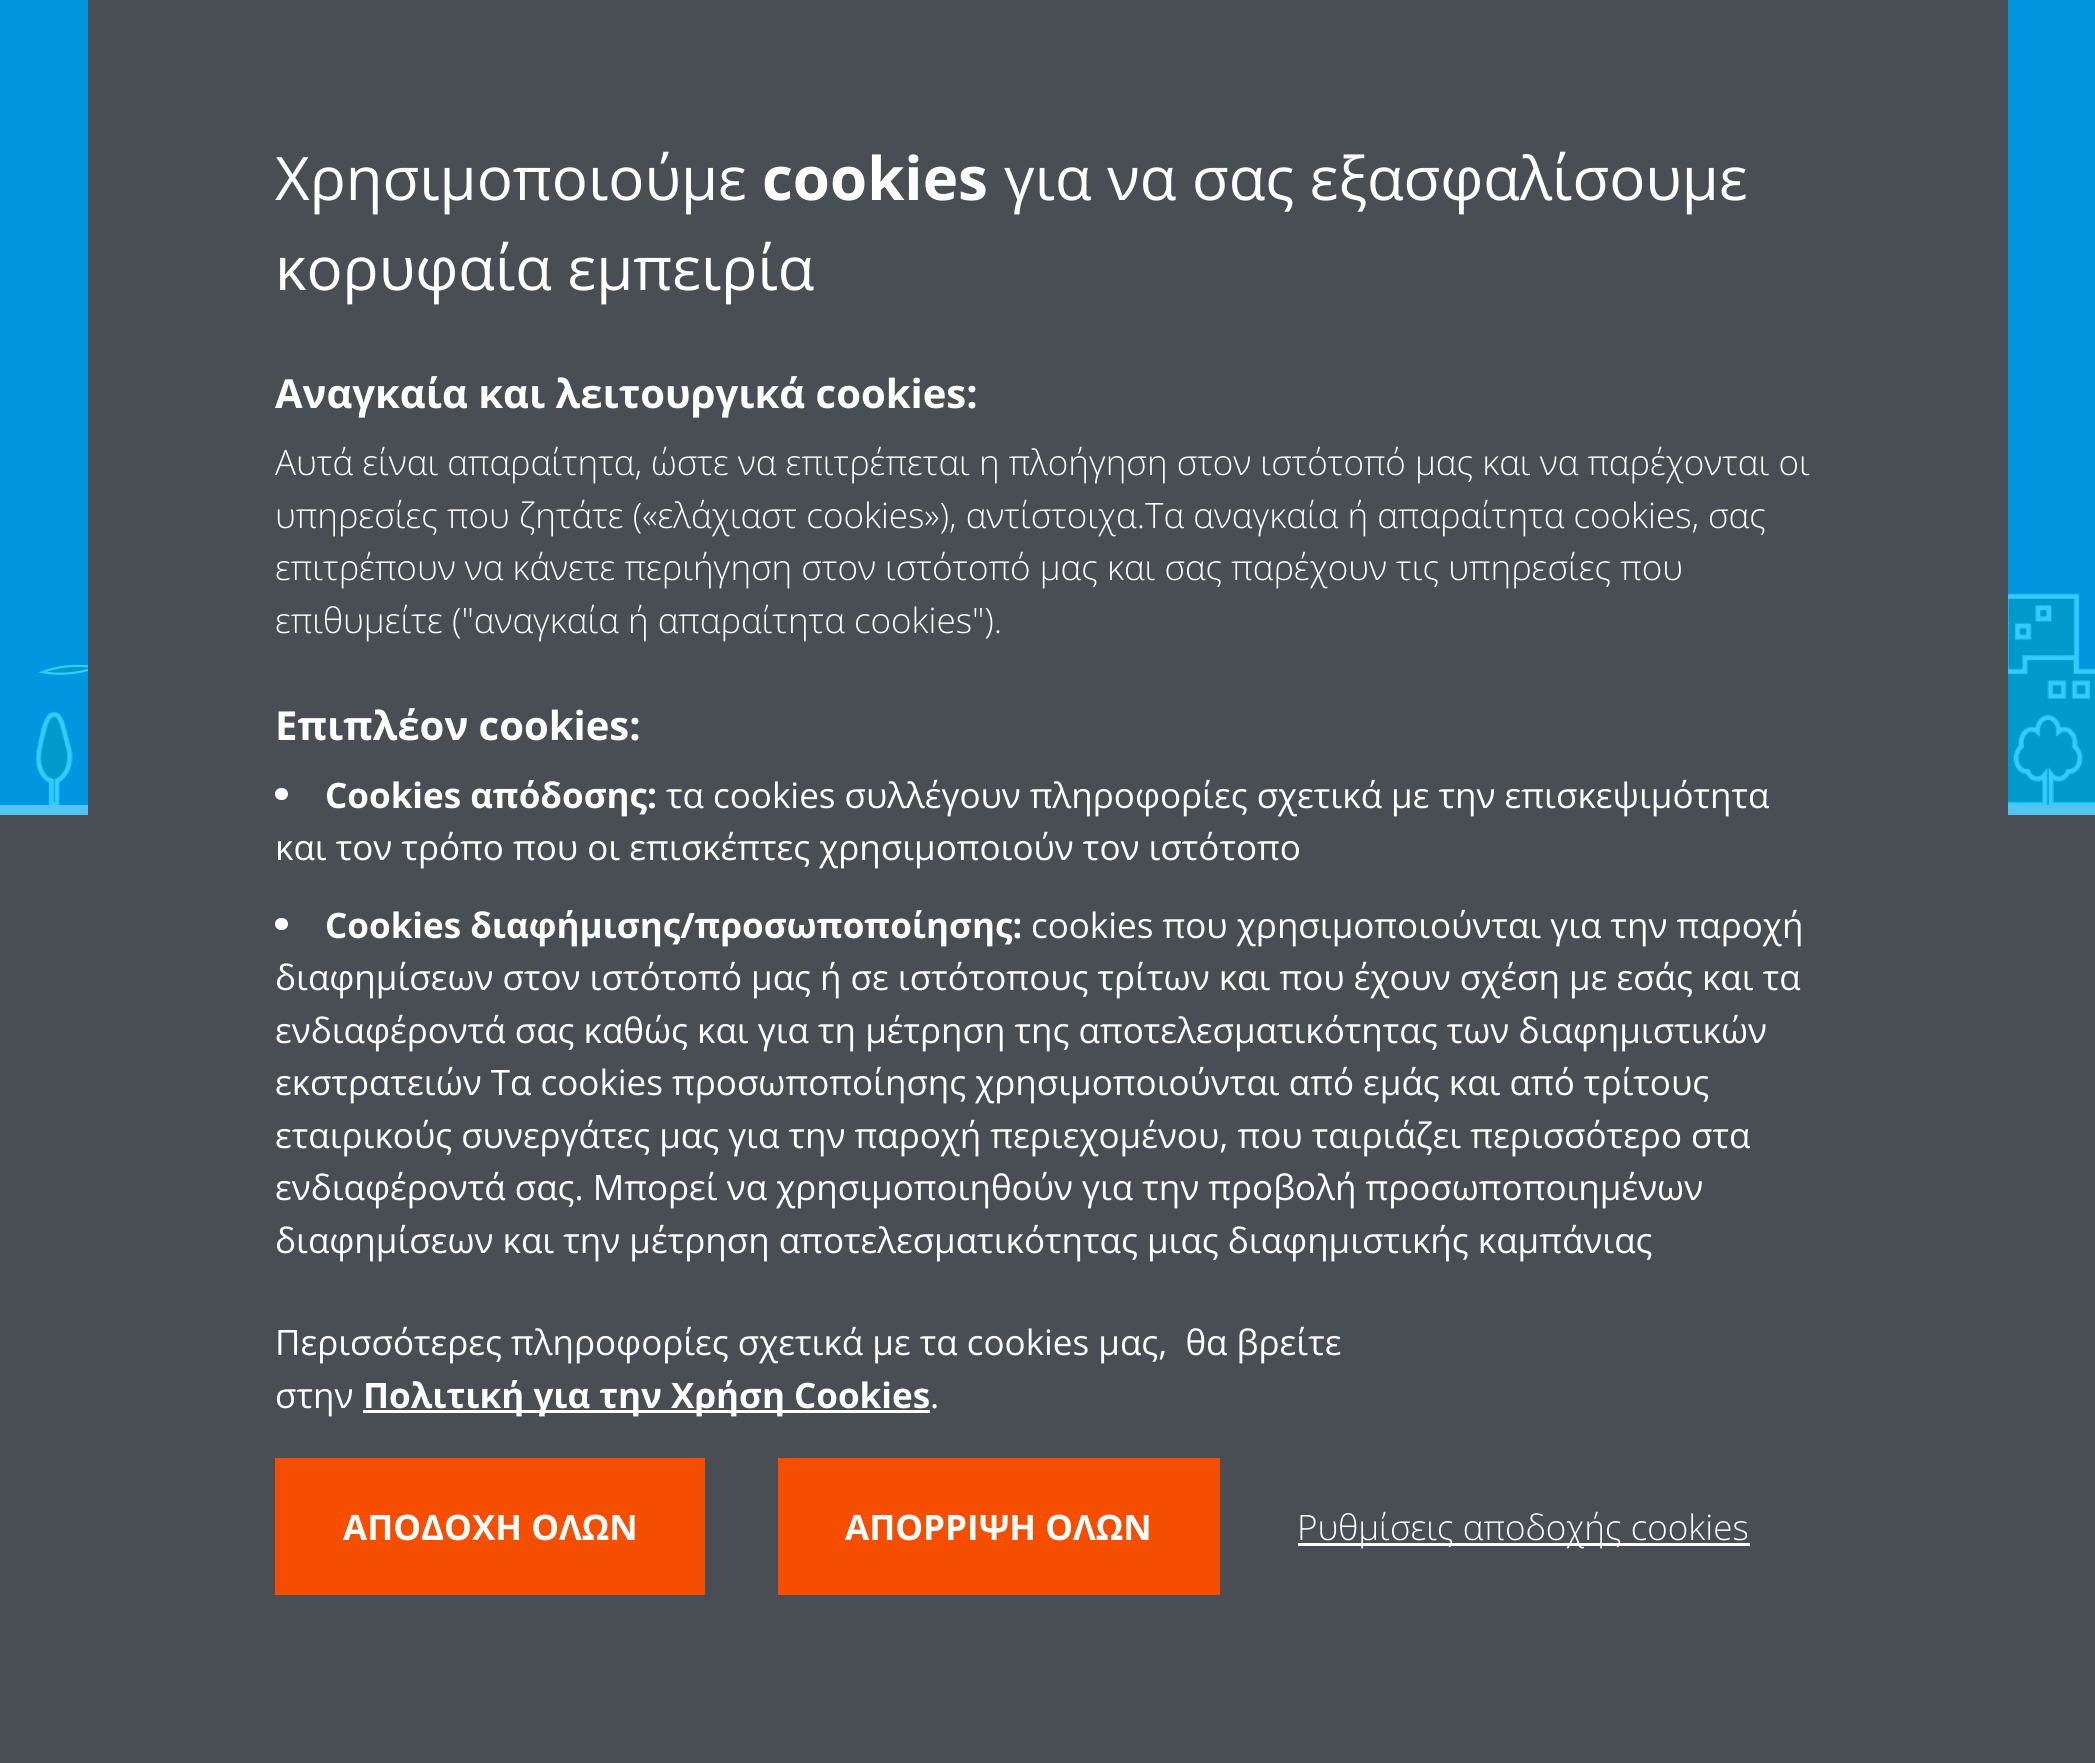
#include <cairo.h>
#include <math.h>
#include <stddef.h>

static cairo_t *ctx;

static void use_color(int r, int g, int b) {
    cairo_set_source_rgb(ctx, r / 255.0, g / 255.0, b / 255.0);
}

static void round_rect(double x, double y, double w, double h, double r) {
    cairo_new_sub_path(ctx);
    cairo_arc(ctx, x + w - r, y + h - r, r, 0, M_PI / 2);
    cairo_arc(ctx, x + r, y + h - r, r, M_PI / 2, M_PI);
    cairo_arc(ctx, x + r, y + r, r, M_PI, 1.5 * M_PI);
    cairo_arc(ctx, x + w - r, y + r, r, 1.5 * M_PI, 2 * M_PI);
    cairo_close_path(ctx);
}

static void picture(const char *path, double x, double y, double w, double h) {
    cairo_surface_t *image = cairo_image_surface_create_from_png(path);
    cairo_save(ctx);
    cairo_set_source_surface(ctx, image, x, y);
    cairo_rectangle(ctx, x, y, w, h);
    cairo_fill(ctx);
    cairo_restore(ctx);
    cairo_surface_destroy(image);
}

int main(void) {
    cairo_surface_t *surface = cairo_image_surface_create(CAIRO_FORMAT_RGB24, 2095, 1763);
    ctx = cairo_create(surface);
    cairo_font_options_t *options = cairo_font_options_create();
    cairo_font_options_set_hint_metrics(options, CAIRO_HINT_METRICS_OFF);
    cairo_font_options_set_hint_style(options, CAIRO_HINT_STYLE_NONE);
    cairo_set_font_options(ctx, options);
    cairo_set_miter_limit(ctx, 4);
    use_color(72, 78, 84);
    cairo_paint(ctx);
    use_color(0, 151, 224);
    cairo_rectangle(ctx, 0, 0, 2095, 805);
    cairo_fill(ctx);
    picture("img2.png", 38, 664, 50, 11);
    picture("img1.png", 36, 593, 2059, 212);
    use_color(84, 195, 241);
    cairo_rectangle(ctx, 0, 805, 2095, 10);
    cairo_fill(ctx);
    use_color(72, 78, 84);
    cairo_rectangle(ctx, 88, 0, 1920, 815);
    cairo_fill(ctx);
    cairo_select_font_face(ctx, "Open Sans", CAIRO_FONT_SLANT_NORMAL, CAIRO_FONT_WEIGHT_NORMAL);
    cairo_set_font_size(ctx, 60);
    use_color(255, 255, 255);
    cairo_move_to(ctx, 275, 200);
    cairo_show_text(ctx, "Χρησιμοποιούμε");
    cairo_select_font_face(ctx, "Open Sans", CAIRO_FONT_SLANT_NORMAL, CAIRO_FONT_WEIGHT_BOLD);
    cairo_move_to(ctx, 762, 200);
    cairo_show_text(ctx, "cookies");
    cairo_select_font_face(ctx, "Open Sans", CAIRO_FONT_SLANT_NORMAL, CAIRO_FONT_WEIGHT_NORMAL);
    cairo_move_to(ctx, 1004, 200);
    cairo_show_text(ctx, "για να σας εξασφαλίσουμε");
    cairo_move_to(ctx, 275, 290);
    cairo_show_text(ctx, "κορυφαία εμπειρία");
    cairo_select_font_face(ctx, "Open Sans", CAIRO_FONT_SLANT_NORMAL, CAIRO_FONT_WEIGHT_BOLD);
    cairo_set_font_size(ctx, 40);
    cairo_move_to(ctx, 275, 408);
    cairo_show_text(ctx, "Αναγκαία και λειτουργικά cookies:");
    cairo_select_font_face(ctx, "Open Sans Light", CAIRO_FONT_SLANT_NORMAL, CAIRO_FONT_WEIGHT_NORMAL);
    cairo_set_font_size(ctx, 35);
    cairo_move_to(ctx, 275, 475);
    cairo_show_text(ctx, "Αυτά είναι απαραίτητα, ώστε να επιτρέπεται η πλοήγηση στον ιστότοπό μας και να παρέχονται οι");
    cairo_move_to(ctx, 275, 528);
    cairo_show_text(ctx, "υπηρεσίες που ζητάτε («ελάχιαστ cookies»), αντίστοιχα.Τα αναγκαία ή απαραίτητα cookies, σας");
    cairo_move_to(ctx, 275, 580);
    cairo_show_text(ctx, "επιτρέπουν να κάνετε περιήγηση στον ιστότοπό μας και σας παρέχουν τις υπηρεσίες που");
    cairo_move_to(ctx, 275, 633);
    cairo_show_text(ctx, "επιθυμείτε (\"αναγκαία ή απαραίτητα cookies\").");
    cairo_select_font_face(ctx, "Open Sans", CAIRO_FONT_SLANT_NORMAL, CAIRO_FONT_WEIGHT_BOLD);
    cairo_set_font_size(ctx, 40);
    cairo_move_to(ctx, 275, 740);
    cairo_show_text(ctx, "Επιπλέον cookies:");
    round_rect(275, 788, 13, 12, 6);
    cairo_fill(ctx);
    cairo_set_font_size(ctx, 35);
    cairo_move_to(ctx, 325, 808);
    cairo_show_text(ctx, "Cookies απόδοσης:");
    cairo_select_font_face(ctx, "Open Sans", CAIRO_FONT_SLANT_NORMAL, CAIRO_FONT_WEIGHT_NORMAL);
    cairo_move_to(ctx, 666, 808);
    cairo_show_text(ctx, "τα cookies συλλέγουν πληροφορίες σχετικά με την επισκεψιμότητα");
    cairo_move_to(ctx, 275, 860);
    cairo_show_text(ctx, "και τον τρόπο που οι επισκέπτες χρησιμοποιούν τον ιστότοπο");
    round_rect(275, 918, 13, 12, 6);
    cairo_fill(ctx);
    cairo_select_font_face(ctx, "Open Sans", CAIRO_FONT_SLANT_NORMAL, CAIRO_FONT_WEIGHT_BOLD);
    cairo_move_to(ctx, 325, 938);
    cairo_show_text(ctx, "Cookies διαφήμισης/προσωποποίησης:");
    cairo_select_font_face(ctx, "Open Sans", CAIRO_FONT_SLANT_NORMAL, CAIRO_FONT_WEIGHT_NORMAL);
    cairo_move_to(ctx, 1031, 938);
    cairo_show_text(ctx, "cookies που χρησιμοποιούνται για την παροχή");
    cairo_move_to(ctx, 275, 990);
    cairo_show_text(ctx, "διαφημίσεων στον ιστότοπό μας ή σε ιστότοπους τρίτων και που έχουν σχέση με εσάς και τα");
    cairo_move_to(ctx, 275, 1043);
    cairo_show_text(ctx, "ενδιαφέροντά σας καθώς και για τη μέτρηση της αποτελεσματικότητας των διαφημιστικών");
    cairo_move_to(ctx, 275, 1095);
    cairo_show_text(ctx, "εκστρατειών Τα cookies προσωποποίησης χρησιμοποιούνται από εμάς και από τρίτους");
    cairo_move_to(ctx, 275, 1148);
    cairo_show_text(ctx, "εταιρικούς συνεργάτες μας για την παροχή περιεχομένου, που ταιριάζει περισσότερο στα");
    cairo_move_to(ctx, 275, 1200);
    cairo_show_text(ctx, "ενδιαφέροντά σας. Μπορεί να χρησιμοποιηθούν για την προβολή προσωποποιημένων");
    cairo_move_to(ctx, 275, 1253);
    cairo_show_text(ctx, "διαφημίσεων και την μέτρηση αποτελεσματικότητας μιας διαφημιστικής καμπάνιας");
    cairo_move_to(ctx, 275, 1355);
    cairo_show_text(ctx, "Περισσότερες πληροφορίες σχετικά με τα cookies μας,  θα βρείτε");
    cairo_move_to(ctx, 275, 1408);
    cairo_show_text(ctx, "στην");
    cairo_rectangle(ctx, 363, 1410, 567, 3);
    cairo_fill(ctx);
    cairo_select_font_face(ctx, "Open Sans", CAIRO_FONT_SLANT_NORMAL, CAIRO_FONT_WEIGHT_BOLD);
    cairo_move_to(ctx, 363, 1408);
    cairo_show_text(ctx, "Πολιτική για την Χρήση Cookies");
    cairo_select_font_face(ctx, "Open Sans", CAIRO_FONT_SLANT_NORMAL, CAIRO_FONT_WEIGHT_NORMAL);
    cairo_move_to(ctx, 930, 1408);
    cairo_show_text(ctx, ".");
    use_color(245, 78, 0);
    cairo_rectangle(ctx, 275, 1458, 430, 137);
    cairo_fill(ctx);
    cairo_select_font_face(ctx, "Open Sans", CAIRO_FONT_SLANT_NORMAL, CAIRO_FONT_WEIGHT_BOLD);
    use_color(255, 255, 255);
    cairo_move_to(ctx, 343, 1540);
    cairo_show_text(ctx, "ΑΠΟΔΟΧΗ ΟΛΩΝ");
    use_color(245, 78, 0);
    cairo_rectangle(ctx, 778, 1458, 442, 137);
    cairo_fill(ctx);
    use_color(255, 255, 255);
    cairo_move_to(ctx, 845, 1540);
    cairo_show_text(ctx, "ΑΠΟΡΡΙΨΗ ΟΛΩΝ");
    cairo_rectangle(ctx, 1298, 1543, 452, 3);
    cairo_fill(ctx);
    cairo_select_font_face(ctx, "Open Sans Light", CAIRO_FONT_SLANT_NORMAL, CAIRO_FONT_WEIGHT_NORMAL);
    cairo_move_to(ctx, 1297, 1540);
    cairo_show_text(ctx, "Ρυθμίσεις αποδοχής cookies");
    cairo_surface_write_to_png(surface, "result.png");
    cairo_font_options_destroy(options);
    cairo_destroy(ctx);
    cairo_surface_destroy(surface);
    return 0;
}
